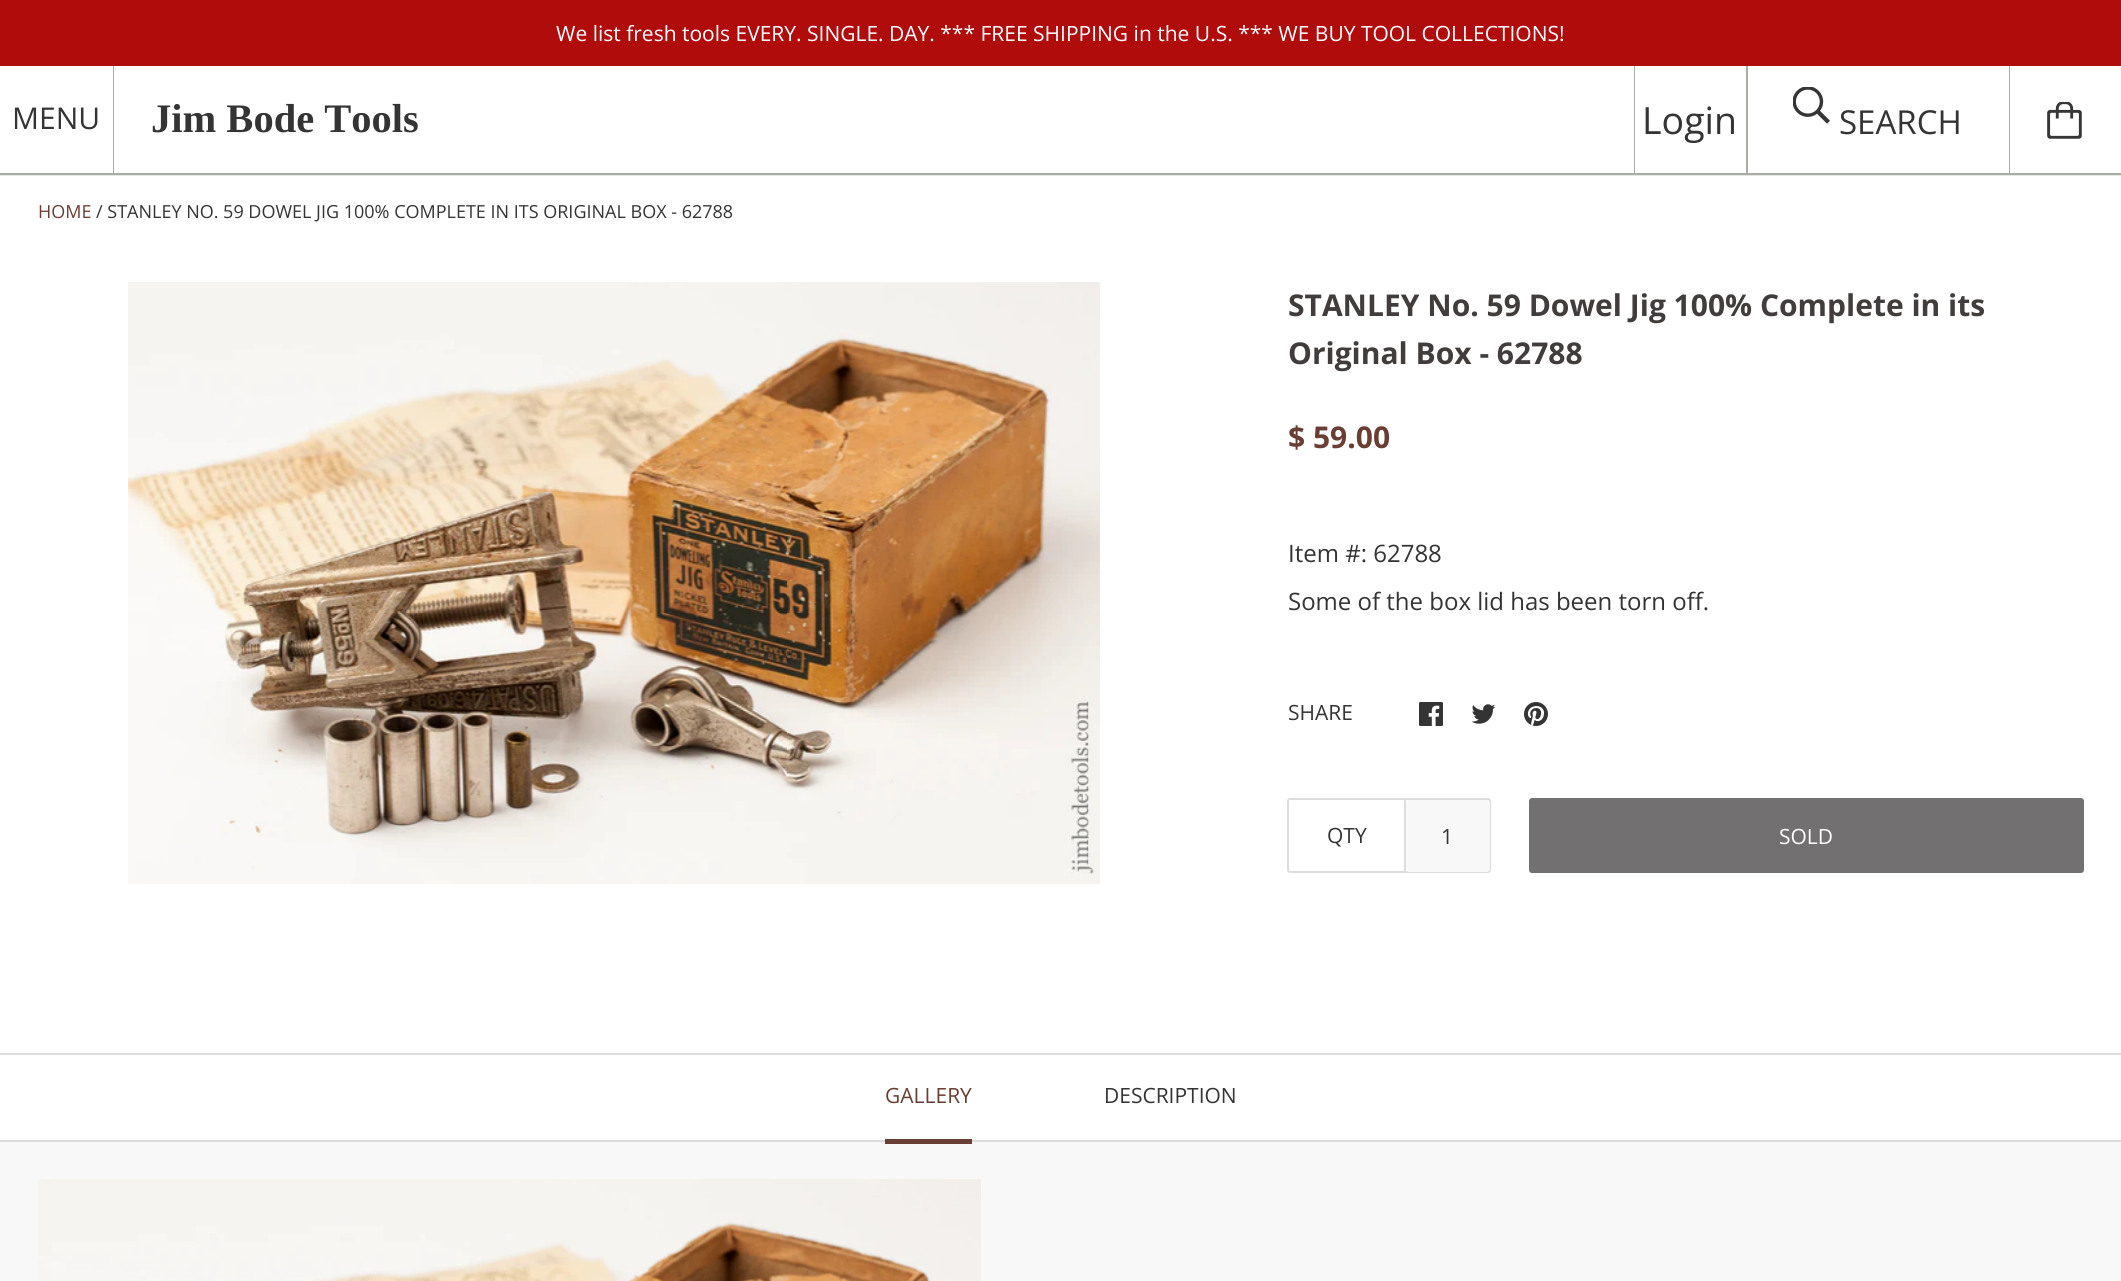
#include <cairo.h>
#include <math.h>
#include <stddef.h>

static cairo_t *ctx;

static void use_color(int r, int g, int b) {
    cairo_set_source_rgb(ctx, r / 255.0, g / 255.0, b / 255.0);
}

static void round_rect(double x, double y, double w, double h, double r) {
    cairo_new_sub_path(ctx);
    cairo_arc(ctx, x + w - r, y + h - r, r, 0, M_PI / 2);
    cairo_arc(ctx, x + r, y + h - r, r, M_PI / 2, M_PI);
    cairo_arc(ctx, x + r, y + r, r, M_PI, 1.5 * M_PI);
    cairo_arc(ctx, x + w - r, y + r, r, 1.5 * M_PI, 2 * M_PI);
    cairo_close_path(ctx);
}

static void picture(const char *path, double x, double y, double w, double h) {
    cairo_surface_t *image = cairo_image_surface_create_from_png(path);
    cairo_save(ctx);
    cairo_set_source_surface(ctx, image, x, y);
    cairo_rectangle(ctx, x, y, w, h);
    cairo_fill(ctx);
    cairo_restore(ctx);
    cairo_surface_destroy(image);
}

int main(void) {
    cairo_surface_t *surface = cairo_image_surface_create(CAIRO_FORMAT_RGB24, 2121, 1281);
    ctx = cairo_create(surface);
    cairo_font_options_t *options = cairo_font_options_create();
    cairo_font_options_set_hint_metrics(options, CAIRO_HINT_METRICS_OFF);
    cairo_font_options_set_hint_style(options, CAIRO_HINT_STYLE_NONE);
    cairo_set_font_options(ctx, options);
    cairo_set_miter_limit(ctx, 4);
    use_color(255, 255, 255);
    cairo_paint(ctx);
    use_color(176, 12, 12);
    cairo_rectangle(ctx, 0, 0, 2121, 66);
    cairo_fill(ctx);
    cairo_select_font_face(ctx, "Open Sans", CAIRO_FONT_SLANT_NORMAL, CAIRO_FONT_WEIGHT_NORMAL);
    cairo_set_font_size(ctx, 21);
    use_color(255, 255, 255);
    cairo_move_to(ctx, 556, 41);
    cairo_show_text(ctx, "We list fresh tools EVERY. SINGLE. DAY. *** FREE SHIPPING in the U.S. *** WE BUY TOOL COLLECTIONS!");
    use_color(230, 230, 228);
    cairo_rectangle(ctx, 0, 175, 2121, 1);
    cairo_fill(ctx);
    use_color(170, 173, 166);
    cairo_rectangle(ctx, 0, 173, 2121, 2);
    cairo_fill(ctx);
    cairo_set_font_size(ctx, 30);
    use_color(52, 52, 52);
    cairo_move_to(ctx, 12, 129);
    cairo_show_text(ctx, "MENU");
    use_color(170, 173, 166);
    cairo_rectangle(ctx, 113, 66, 1, 107);
    cairo_fill(ctx);
    cairo_select_font_face(ctx, "Liberation Serif", CAIRO_FONT_SLANT_NORMAL, CAIRO_FONT_WEIGHT_BOLD);
    cairo_set_font_size(ctx, 40.5);
    use_color(52, 52, 52);
    cairo_move_to(ctx, 151, 132);
    cairo_show_text(ctx, "Jim Bode Tools");
    use_color(170, 173, 166);
    cairo_rectangle(ctx, 1634, 66, 1, 107);
    cairo_fill(ctx);
    cairo_select_font_face(ctx, "Open Sans", CAIRO_FONT_SLANT_NORMAL, CAIRO_FONT_WEIGHT_NORMAL);
    cairo_set_font_size(ctx, 37.5);
    use_color(52, 52, 52);
    cairo_move_to(ctx, 1642, 134);
    cairo_show_text(ctx, "Login");
    use_color(170, 173, 166);
    cairo_rectangle(ctx, 1746, 66, 2, 107);
    cairo_fill(ctx);
    picture("img1.png", 1793, 87, 37, 37);
    cairo_set_font_size(ctx, 33);
    use_color(52, 52, 52);
    cairo_move_to(ctx, 1839, 134);
    cairo_show_text(ctx, "SEARCH");
    use_color(170, 173, 166);
    cairo_rectangle(ctx, 2009, 66, 1, 107);
    cairo_fill(ctx);
    picture("img2.png", 2047, 102, 35, 37);
    cairo_set_font_size(ctx, 18);
    use_color(105, 62, 52);
    cairo_move_to(ctx, 38, 218);
    cairo_show_text(ctx, "HOME");
    use_color(52, 52, 52);
    cairo_move_to(ctx, 96, 218);
    cairo_show_text(ctx, "/ STANLEY NO. 59 DOWEL JIG 100% COMPLETE IN ITS ORIGINAL BOX - 62788");
    picture("img3.png", 128, 282, 972, 602);
    cairo_select_font_face(ctx, "Open Sans", CAIRO_FONT_SLANT_NORMAL, CAIRO_FONT_WEIGHT_BOLD);
    cairo_set_font_size(ctx, 30);
    use_color(65, 61, 61);
    cairo_move_to(ctx, 1288, 316);
    cairo_show_text(ctx, "STANLEY No. 59 Dowel Jig 100% Complete in its");
    cairo_move_to(ctx, 1288, 364);
    cairo_show_text(ctx, "Original Box - 62788");
    use_color(105, 62, 52);
    cairo_move_to(ctx, 1288, 448);
    cairo_show_text(ctx, "$ 59.00");
    cairo_select_font_face(ctx, "Open Sans", CAIRO_FONT_SLANT_NORMAL, CAIRO_FONT_WEIGHT_NORMAL);
    cairo_set_font_size(ctx, 24);
    use_color(52, 52, 52);
    cairo_move_to(ctx, 1288, 562);
    cairo_show_text(ctx, "Item #: 62788");
    cairo_move_to(ctx, 1288, 610);
    cairo_show_text(ctx, "Some of the box lid has been torn off.");
    cairo_set_font_size(ctx, 21);
    cairo_move_to(ctx, 1288, 720);
    cairo_show_text(ctx, "SHARE");
    picture("img4.png", 1419, 702, 24, 24);
    picture("img5.png", 1472, 704, 24, 20);
    picture("img6.png", 1524, 702, 24, 24);
    round_rect(1288, 799, 202, 73, 2);
    use_color(221, 221, 221);
    cairo_stroke(ctx);
    cairo_rectangle(ctx, 1404, 800, 2, 72);
    cairo_fill(ctx);
    use_color(52, 52, 52);
    cairo_move_to(ctx, 1327, 843);
    cairo_show_text(ctx, "QTY");
    use_color(248, 248, 248);
    round_rect(1406, 800, 84, 72, 3);
    cairo_fill(ctx);
    use_color(52, 52, 52);
    cairo_move_to(ctx, 1441, 844);
    cairo_show_text(ctx, "1");
    use_color(114, 112, 113);
    round_rect(1529, 798, 555, 75, 3);
    cairo_fill(ctx);
    use_color(255, 255, 255);
    cairo_move_to(ctx, 1779, 844);
    cairo_show_text(ctx, "SOLD");
    use_color(221, 221, 221);
    cairo_rectangle(ctx, 0, 1053, 2121, 2);
    cairo_fill(ctx);
    cairo_rectangle(ctx, 0, 1140, 2121, 2);
    cairo_fill(ctx);
    use_color(105, 62, 52);
    cairo_move_to(ctx, 885, 1103);
    cairo_show_text(ctx, "GALLERY");
    use_color(248, 248, 248);
    cairo_rectangle(ctx, 0, 1142, 2121, 139);
    cairo_fill(ctx);
    use_color(105, 62, 52);
    cairo_rectangle(ctx, 885, 1139, 87, 5);
    cairo_fill(ctx);
    use_color(52, 52, 52);
    cairo_move_to(ctx, 1104, 1103);
    cairo_show_text(ctx, "DESCRIPTION");
    picture("img7.png", 38, 1179, 943, 102);
    cairo_surface_write_to_png(surface, "result.png");
    cairo_font_options_destroy(options);
    cairo_destroy(ctx);
    cairo_surface_destroy(surface);
    return 0;
}
